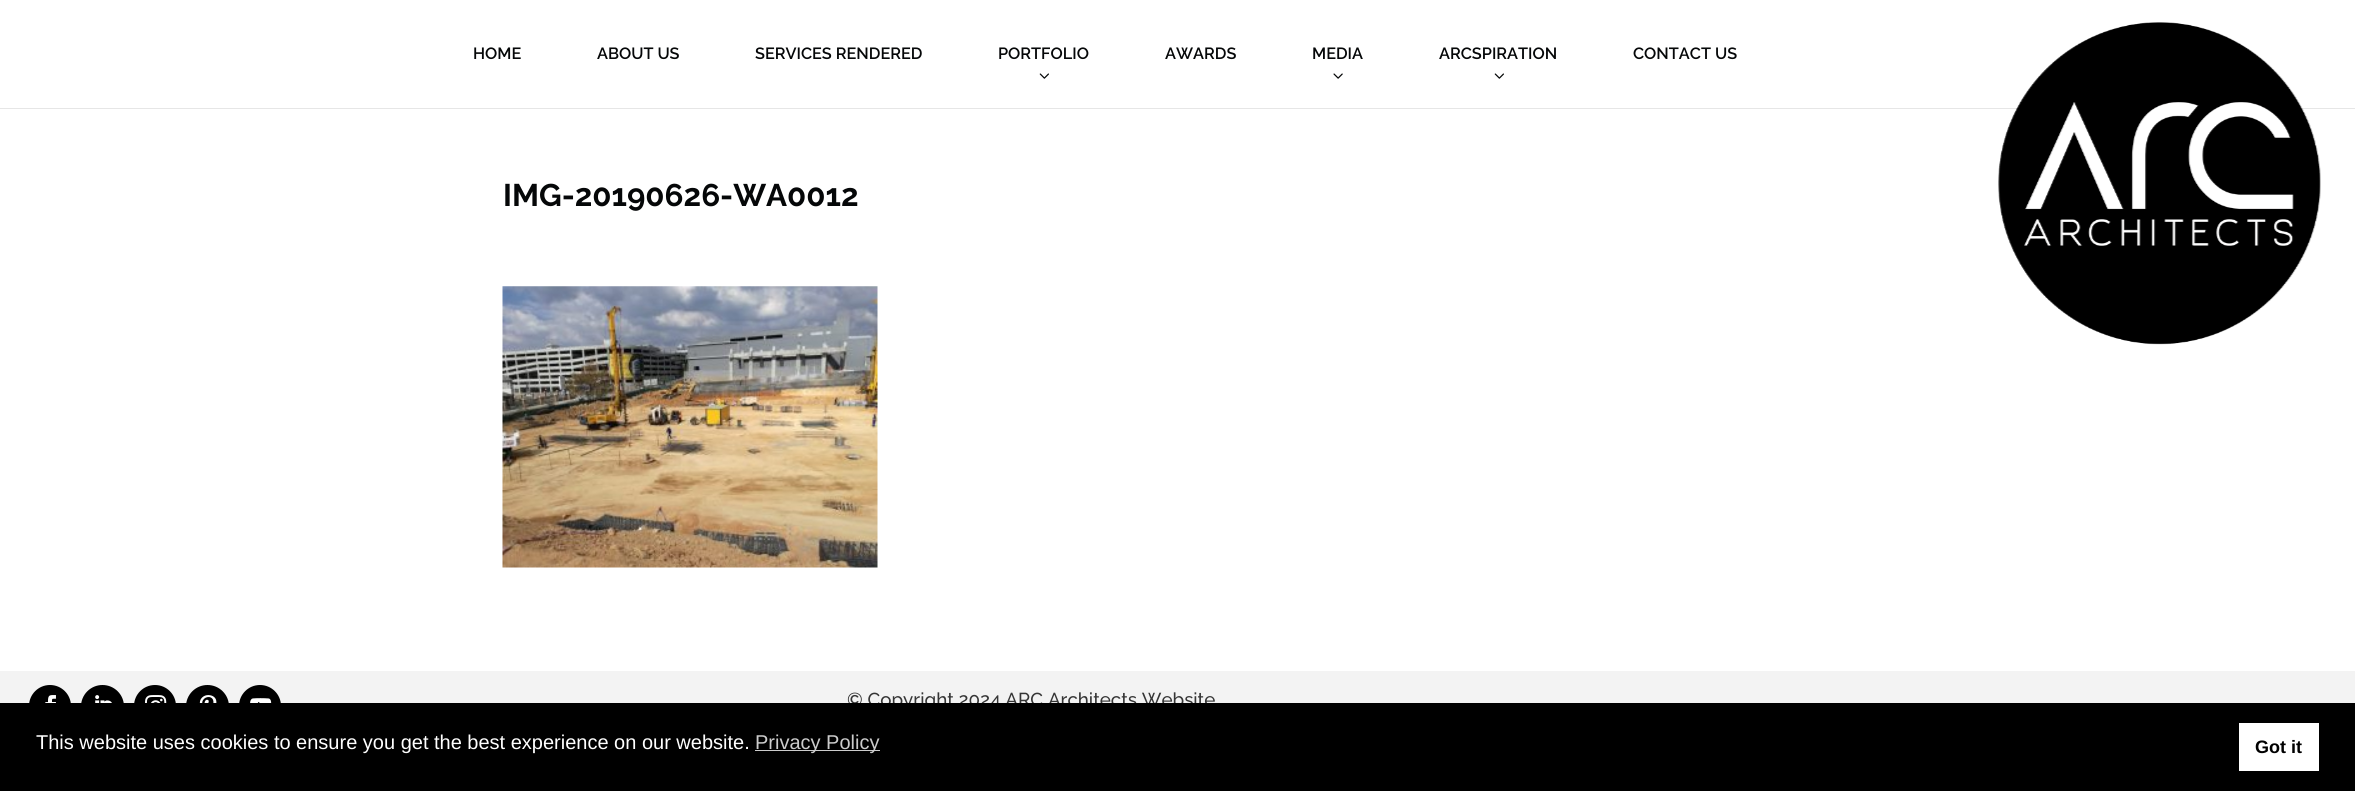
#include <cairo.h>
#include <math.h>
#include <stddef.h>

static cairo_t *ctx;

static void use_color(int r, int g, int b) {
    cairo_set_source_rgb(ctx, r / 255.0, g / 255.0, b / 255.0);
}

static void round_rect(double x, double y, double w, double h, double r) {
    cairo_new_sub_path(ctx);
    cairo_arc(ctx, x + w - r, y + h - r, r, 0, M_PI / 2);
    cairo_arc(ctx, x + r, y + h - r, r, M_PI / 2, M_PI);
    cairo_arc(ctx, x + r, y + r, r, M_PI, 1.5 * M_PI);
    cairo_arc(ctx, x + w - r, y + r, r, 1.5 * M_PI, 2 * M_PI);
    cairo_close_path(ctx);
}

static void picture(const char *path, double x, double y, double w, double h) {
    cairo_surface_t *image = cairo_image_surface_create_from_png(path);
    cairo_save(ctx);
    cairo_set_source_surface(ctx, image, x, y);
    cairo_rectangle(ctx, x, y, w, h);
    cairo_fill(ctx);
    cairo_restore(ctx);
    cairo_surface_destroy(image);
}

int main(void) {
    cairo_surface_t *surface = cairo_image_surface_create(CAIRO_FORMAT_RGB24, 2355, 791);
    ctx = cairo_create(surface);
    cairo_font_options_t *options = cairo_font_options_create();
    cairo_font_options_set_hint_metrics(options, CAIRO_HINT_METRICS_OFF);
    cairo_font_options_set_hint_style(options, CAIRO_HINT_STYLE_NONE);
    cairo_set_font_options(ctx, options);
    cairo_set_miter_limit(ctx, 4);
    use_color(255, 255, 255);
    cairo_paint(ctx);
    use_color(230, 230, 230);
    cairo_rectangle(ctx, 0, 108, 2355, 1);
    cairo_fill(ctx);
    cairo_select_font_face(ctx, "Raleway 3 Thin", CAIRO_FONT_SLANT_NORMAL, CAIRO_FONT_WEIGHT_NORMAL);
    cairo_set_font_size(ctx, 16.25);
    use_color(5, 7, 8);
    cairo_move_to(ctx, 473, 59);
    cairo_show_text(ctx, "HOME");
    cairo_move_to(ctx, 597, 59);
    cairo_show_text(ctx, "ABOUT US");
    cairo_move_to(ctx, 755, 59);
    cairo_show_text(ctx, "SERVICES RENDERED");
    cairo_move_to(ctx, 998, 59);
    cairo_show_text(ctx, "PORTFOLIO");
    picture("img1.png", 1039, 73, 10, 6);
    cairo_move_to(ctx, 1165, 59);
    cairo_show_text(ctx, "AWARDS");
    cairo_move_to(ctx, 1312, 59);
    cairo_show_text(ctx, "MEDIA");
    picture("img2.png", 1333, 73, 10, 6);
    cairo_move_to(ctx, 1439, 59);
    cairo_show_text(ctx, "ARCSPIRATION");
    picture("img1.png", 1494, 73, 10, 6);
    cairo_move_to(ctx, 1633, 59);
    cairo_show_text(ctx, "CONTACT US");
    picture("img3.png", 1998, 22, 323, 323);
    cairo_select_font_face(ctx, "Raleway Thin", CAIRO_FONT_SLANT_NORMAL, CAIRO_FONT_WEIGHT_NORMAL);
    cairo_set_font_size(ctx, 31.25);
    cairo_move_to(ctx, 503, 206);
    cairo_show_text(ctx, "IMG-20190626-WA0012");
    picture("img4.png", 502, 286, 376, 282);
    use_color(243, 243, 243);
    cairo_rectangle(ctx, 0, 671, 2355, 32);
    cairo_fill(ctx);
    use_color(0, 0, 0);
    round_rect(29, 685, 42, 43, 21);
    cairo_fill(ctx);
    picture("img5.png", 45, 695, 11, 8);
    cairo_arc(ctx, 102.5, 706.5, 21.5, 0, 2 * M_PI);
    cairo_fill(ctx);
    picture("img6.png", 95, 695, 17, 8);
    round_rect(134, 685, 42, 43, 21);
    cairo_fill(ctx);
    picture("img7.png", 145, 695, 22, 8);
    cairo_arc(ctx, 207.5, 706.5, 21.5, 0, 2 * M_PI);
    cairo_fill(ctx);
    picture("img8.png", 199, 695, 18, 8);
    round_rect(239, 685, 42, 43, 21);
    cairo_fill(ctx);
    picture("img9.png", 250, 698, 22, 5);
    cairo_select_font_face(ctx, "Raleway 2 Thin", CAIRO_FONT_SLANT_NORMAL, CAIRO_FONT_WEIGHT_NORMAL);
    cairo_set_font_size(ctx, 18.75);
    use_color(53, 53, 53);
    cairo_move_to(ctx, 847, 706);
    cairo_show_text(ctx, "© Copyright 2024 ARC Architects Website");
    use_color(0, 0, 0);
    cairo_rectangle(ctx, 0, 703, 2355, 88);
    cairo_fill(ctx);
    cairo_select_font_face(ctx, "Liberation Sans", CAIRO_FONT_SLANT_NORMAL, CAIRO_FONT_WEIGHT_NORMAL);
    cairo_set_font_size(ctx, 20);
    use_color(255, 255, 255);
    cairo_move_to(ctx, 36, 749);
    cairo_show_text(ctx, "This website uses cookies to ensure you get the best experience on our website.");
    use_color(204, 204, 204);
    cairo_rectangle(ctx, 755, 750, 125, 1);
    cairo_fill(ctx);
    cairo_move_to(ctx, 755, 749);
    cairo_show_text(ctx, "Privacy Policy");
    use_color(255, 255, 255);
    cairo_rectangle(ctx, 2239, 723, 80, 48);
    cairo_fill(ctx);
    cairo_select_font_face(ctx, "Liberation Sans", CAIRO_FONT_SLANT_NORMAL, CAIRO_FONT_WEIGHT_BOLD);
    cairo_set_font_size(ctx, 18);
    use_color(0, 0, 0);
    cairo_move_to(ctx, 2255, 753);
    cairo_show_text(ctx, "Got it");
    cairo_surface_write_to_png(surface, "result.png");
    cairo_font_options_destroy(options);
    cairo_destroy(ctx);
    cairo_surface_destroy(surface);
    return 0;
}
